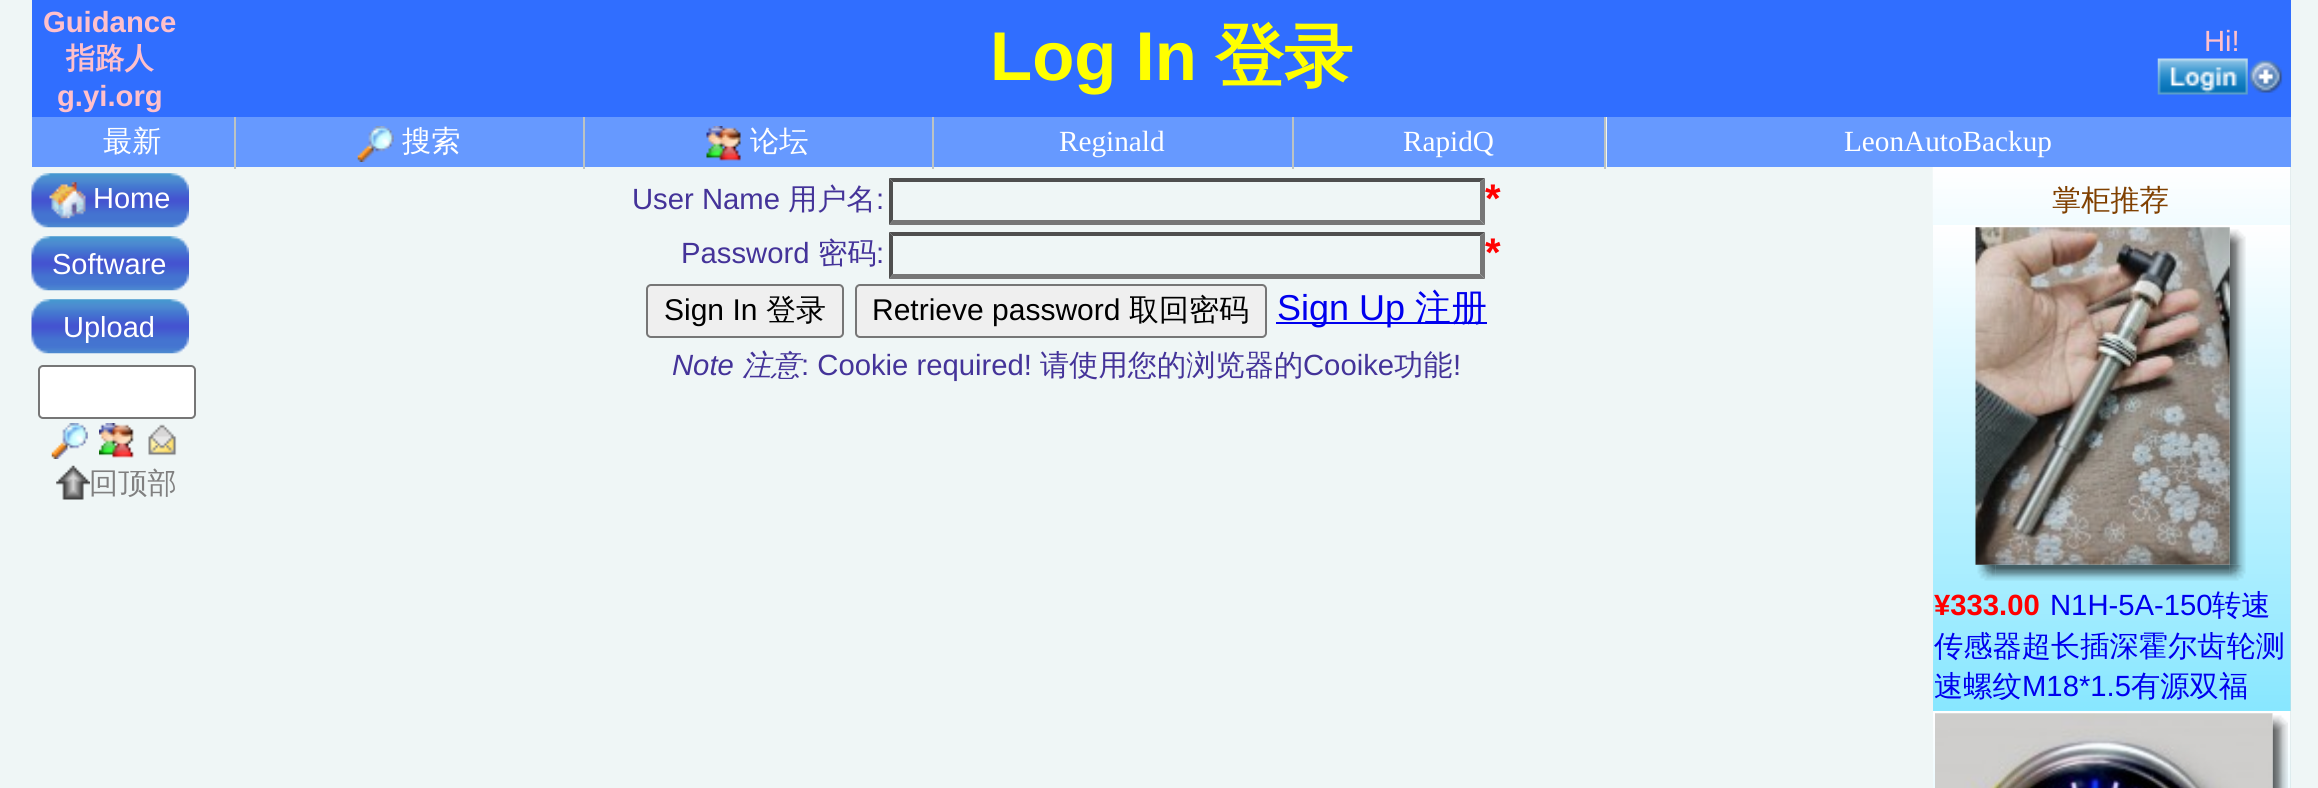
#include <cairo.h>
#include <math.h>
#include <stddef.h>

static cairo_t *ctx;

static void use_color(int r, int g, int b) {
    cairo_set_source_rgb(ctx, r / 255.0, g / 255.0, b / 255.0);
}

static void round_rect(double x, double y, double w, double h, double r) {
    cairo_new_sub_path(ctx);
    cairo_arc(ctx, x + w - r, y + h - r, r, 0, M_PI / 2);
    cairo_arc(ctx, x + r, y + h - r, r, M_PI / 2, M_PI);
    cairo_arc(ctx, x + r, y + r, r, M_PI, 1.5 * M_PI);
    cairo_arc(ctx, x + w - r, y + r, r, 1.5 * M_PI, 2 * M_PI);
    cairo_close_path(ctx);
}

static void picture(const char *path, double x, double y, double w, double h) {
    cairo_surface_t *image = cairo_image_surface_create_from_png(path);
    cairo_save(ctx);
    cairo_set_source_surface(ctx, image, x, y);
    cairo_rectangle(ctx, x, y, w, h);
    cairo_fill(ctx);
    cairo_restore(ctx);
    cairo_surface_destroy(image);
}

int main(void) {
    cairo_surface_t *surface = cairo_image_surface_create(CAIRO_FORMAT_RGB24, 2318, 788);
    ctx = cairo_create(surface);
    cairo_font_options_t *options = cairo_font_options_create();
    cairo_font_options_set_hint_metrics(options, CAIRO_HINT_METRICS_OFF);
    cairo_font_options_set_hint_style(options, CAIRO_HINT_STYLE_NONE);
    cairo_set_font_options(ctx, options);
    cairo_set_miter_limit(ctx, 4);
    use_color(239, 246, 246);
    cairo_paint(ctx);
    use_color(48, 110, 255);
    cairo_rectangle(ctx, 32, 0, 2259, 117);
    cairo_fill(ctx);
    cairo_select_font_face(ctx, "Liberation Sans", CAIRO_FONT_SLANT_NORMAL, CAIRO_FONT_WEIGHT_BOLD);
    cairo_set_font_size(ctx, 29.25);
    use_color(255, 192, 203);
    cairo_move_to(ctx, 43, 32);
    cairo_show_text(ctx, "Guidance");
    cairo_select_font_face(ctx, "WenQuanYi Zen Hei", CAIRO_FONT_SLANT_NORMAL, CAIRO_FONT_WEIGHT_BOLD);
    cairo_move_to(ctx, 66, 68);
    cairo_show_text(ctx, "指路人");
    cairo_select_font_face(ctx, "Liberation Sans", CAIRO_FONT_SLANT_NORMAL, CAIRO_FONT_WEIGHT_BOLD);
    cairo_move_to(ctx, 57, 106);
    cairo_show_text(ctx, "g.yi.org");
    cairo_set_font_size(ctx, 69);
    use_color(255, 255, 0);
    cairo_move_to(ctx, 990, 80);
    cairo_show_text(ctx, "Log In");
    cairo_select_font_face(ctx, "WenQuanYi Zen Hei", CAIRO_FONT_SLANT_NORMAL, CAIRO_FONT_WEIGHT_BOLD);
    cairo_move_to(ctx, 1215, 80);
    cairo_show_text(ctx, "登录");
    cairo_select_font_face(ctx, "Liberation Sans", CAIRO_FONT_SLANT_NORMAL, CAIRO_FONT_WEIGHT_NORMAL);
    cairo_set_font_size(ctx, 29.25);
    use_color(255, 192, 203);
    cairo_move_to(ctx, 2204, 51);
    cairo_show_text(ctx, "Hi!");
    picture("img1.png", 2157, 58, 91, 37);
    picture("img2.png", 2249, 60, 34, 33);
    use_color(188, 195, 195);
    cairo_rectangle(ctx, 234, 117, 2, 52);
    cairo_fill(ctx);
    use_color(102, 153, 255);
    cairo_rectangle(ctx, 32, 117, 202, 50);
    cairo_fill(ctx);
    cairo_select_font_face(ctx, "WenQuanYi Zen Hei Medium", CAIRO_FONT_SLANT_NORMAL, CAIRO_FONT_WEIGHT_NORMAL);
    use_color(255, 255, 255);
    cairo_move_to(ctx, 103, 151);
    cairo_show_text(ctx, "最新");
    use_color(188, 195, 195);
    cairo_rectangle(ctx, 583, 117, 2, 52);
    cairo_fill(ctx);
    use_color(102, 153, 255);
    cairo_rectangle(ctx, 236, 117, 347, 50);
    cairo_fill(ctx);
    picture("img3.png", 357, 126, 37, 36);
    use_color(255, 255, 255);
    cairo_move_to(ctx, 402, 151);
    cairo_show_text(ctx, "搜索");
    use_color(188, 195, 195);
    cairo_rectangle(ctx, 932, 117, 2, 52);
    cairo_fill(ctx);
    use_color(102, 153, 255);
    cairo_rectangle(ctx, 585, 117, 347, 50);
    cairo_fill(ctx);
    picture("img4.png", 706, 126, 35, 35);
    use_color(255, 255, 255);
    cairo_move_to(ctx, 750, 151);
    cairo_show_text(ctx, "论坛");
    use_color(188, 195, 195);
    cairo_rectangle(ctx, 1292, 117, 2, 52);
    cairo_fill(ctx);
    use_color(102, 153, 255);
    cairo_rectangle(ctx, 934, 117, 358, 50);
    cairo_fill(ctx);
    cairo_select_font_face(ctx, "Liberation Serif", CAIRO_FONT_SLANT_NORMAL, CAIRO_FONT_WEIGHT_NORMAL);
    use_color(255, 255, 255);
    cairo_move_to(ctx, 1059, 151);
    cairo_show_text(ctx, "Reginald");
    use_color(188, 195, 195);
    cairo_rectangle(ctx, 1604, 117, 2, 52);
    cairo_fill(ctx);
    use_color(102, 153, 255);
    cairo_rectangle(ctx, 1294, 117, 310, 50);
    cairo_fill(ctx);
    use_color(255, 255, 255);
    cairo_move_to(ctx, 1403, 151);
    cairo_show_text(ctx, "RapidQ");
    use_color(102, 153, 255);
    cairo_rectangle(ctx, 1607, 117, 684, 50);
    cairo_fill(ctx);
    use_color(255, 255, 255);
    cairo_move_to(ctx, 1844, 151);
    cairo_show_text(ctx, "LeonAutoBackup");
    picture("img5.png", 31, 173, 158, 55);
    picture("img6.png", 49, 182, 37, 37);
    cairo_select_font_face(ctx, "Liberation Sans", CAIRO_FONT_SLANT_NORMAL, CAIRO_FONT_WEIGHT_NORMAL);
    cairo_set_font_size(ctx, 29);
    cairo_move_to(ctx, 93, 208);
    cairo_show_text(ctx, "Home");
    picture("img5.png", 31, 236, 158, 55);
    cairo_move_to(ctx, 52, 274);
    cairo_show_text(ctx, "Software");
    picture("img5.png", 31, 299, 158, 55);
    cairo_move_to(ctx, 63, 337);
    cairo_show_text(ctx, "Upload");
    round_rect(39, 366, 156, 52, 4);
    cairo_fill_preserve(ctx);
    use_color(118, 118, 118);
    cairo_stroke(ctx);
    picture("img7.png", 51, 423, 37, 36);
    picture("img8.png", 99, 423, 35, 35);
    picture("img9.png", 148, 424, 29, 32);
    picture("img10.png", 56, 465, 34, 35);
    cairo_select_font_face(ctx, "WenQuanYi Zen Hei Medium", CAIRO_FONT_SLANT_NORMAL, CAIRO_FONT_WEIGHT_NORMAL);
    cairo_set_font_size(ctx, 29.25);
    use_color(128, 128, 128);
    cairo_move_to(ctx, 89, 493);
    cairo_show_text(ctx, "回顶部");
    cairo_select_font_face(ctx, "Liberation Sans", CAIRO_FONT_SLANT_NORMAL, CAIRO_FONT_WEIGHT_NORMAL);
    use_color(68, 51, 153);
    cairo_move_to(ctx, 632, 209);
    cairo_show_text(ctx, "User Name");
    cairo_select_font_face(ctx, "WenQuanYi Zen Hei Medium", CAIRO_FONT_SLANT_NORMAL, CAIRO_FONT_WEIGHT_NORMAL);
    cairo_move_to(ctx, 788, 209);
    cairo_show_text(ctx, "用户名");
    cairo_select_font_face(ctx, "Liberation Sans", CAIRO_FONT_SLANT_NORMAL, CAIRO_FONT_WEIGHT_NORMAL);
    cairo_move_to(ctx, 876, 209);
    cairo_show_text(ctx, ":");
    use_color(79, 79, 79);
    cairo_new_path(ctx);
    cairo_move_to(ctx, 889, 178);
    cairo_line_to(ctx, 1485, 178);
    cairo_line_to(ctx, 1480, 182);
    cairo_line_to(ctx, 893, 182);
    cairo_close_path(ctx);
    cairo_fill(ctx);
    use_color(118, 118, 118);
    cairo_new_path(ctx);
    cairo_move_to(ctx, 1485, 178);
    cairo_line_to(ctx, 1485, 225);
    cairo_line_to(ctx, 1480, 220);
    cairo_line_to(ctx, 1480, 182);
    cairo_close_path(ctx);
    cairo_fill(ctx);
    cairo_new_path(ctx);
    cairo_move_to(ctx, 1485, 225);
    cairo_line_to(ctx, 889, 225);
    cairo_line_to(ctx, 893, 220);
    cairo_line_to(ctx, 1480, 220);
    cairo_close_path(ctx);
    cairo_fill(ctx);
    use_color(79, 79, 79);
    cairo_new_path(ctx);
    cairo_move_to(ctx, 889, 225);
    cairo_line_to(ctx, 889, 178);
    cairo_line_to(ctx, 893, 182);
    cairo_line_to(ctx, 893, 220);
    cairo_close_path(ctx);
    cairo_fill(ctx);
    cairo_select_font_face(ctx, "Liberation Sans", CAIRO_FONT_SLANT_NORMAL, CAIRO_FONT_WEIGHT_BOLD);
    cairo_set_font_size(ctx, 40);
    use_color(255, 0, 0);
    cairo_move_to(ctx, 1485, 212);
    cairo_show_text(ctx, "*");
    cairo_select_font_face(ctx, "Liberation Sans", CAIRO_FONT_SLANT_NORMAL, CAIRO_FONT_WEIGHT_NORMAL);
    cairo_set_font_size(ctx, 29.25);
    use_color(68, 51, 153);
    cairo_move_to(ctx, 681, 263);
    cairo_show_text(ctx, "Password");
    cairo_select_font_face(ctx, "WenQuanYi Zen Hei Medium", CAIRO_FONT_SLANT_NORMAL, CAIRO_FONT_WEIGHT_NORMAL);
    cairo_move_to(ctx, 818, 263);
    cairo_show_text(ctx, "密码");
    cairo_select_font_face(ctx, "Liberation Sans", CAIRO_FONT_SLANT_NORMAL, CAIRO_FONT_WEIGHT_NORMAL);
    cairo_move_to(ctx, 876, 263);
    cairo_show_text(ctx, ":");
    use_color(79, 79, 79);
    cairo_new_path(ctx);
    cairo_move_to(ctx, 889, 232);
    cairo_line_to(ctx, 1485, 232);
    cairo_line_to(ctx, 1480, 236);
    cairo_line_to(ctx, 893, 236);
    cairo_close_path(ctx);
    cairo_fill(ctx);
    use_color(118, 118, 118);
    cairo_new_path(ctx);
    cairo_move_to(ctx, 1485, 232);
    cairo_line_to(ctx, 1485, 279);
    cairo_line_to(ctx, 1480, 274);
    cairo_line_to(ctx, 1480, 236);
    cairo_close_path(ctx);
    cairo_fill(ctx);
    cairo_new_path(ctx);
    cairo_move_to(ctx, 1485, 279);
    cairo_line_to(ctx, 889, 279);
    cairo_line_to(ctx, 893, 274);
    cairo_line_to(ctx, 1480, 274);
    cairo_close_path(ctx);
    cairo_fill(ctx);
    use_color(79, 79, 79);
    cairo_new_path(ctx);
    cairo_move_to(ctx, 889, 279);
    cairo_line_to(ctx, 889, 232);
    cairo_line_to(ctx, 893, 236);
    cairo_line_to(ctx, 893, 274);
    cairo_close_path(ctx);
    cairo_fill(ctx);
    cairo_select_font_face(ctx, "Liberation Sans", CAIRO_FONT_SLANT_NORMAL, CAIRO_FONT_WEIGHT_BOLD);
    cairo_set_font_size(ctx, 40);
    use_color(255, 0, 0);
    cairo_move_to(ctx, 1485, 266);
    cairo_show_text(ctx, "*");
    use_color(239, 239, 239);
    round_rect(647, 285, 196, 52, 4);
    cairo_fill_preserve(ctx);
    use_color(118, 118, 118);
    cairo_stroke(ctx);
    cairo_select_font_face(ctx, "Liberation Sans", CAIRO_FONT_SLANT_NORMAL, CAIRO_FONT_WEIGHT_NORMAL);
    cairo_set_font_size(ctx, 30);
    use_color(0, 0, 0);
    cairo_move_to(ctx, 664, 320);
    cairo_show_text(ctx, "Sign In");
    cairo_select_font_face(ctx, "WenQuanYi Zen Hei Medium", CAIRO_FONT_SLANT_NORMAL, CAIRO_FONT_WEIGHT_NORMAL);
    cairo_move_to(ctx, 766, 320);
    cairo_show_text(ctx, "登录");
    use_color(239, 239, 239);
    round_rect(856, 285, 410, 52, 4);
    cairo_fill_preserve(ctx);
    use_color(118, 118, 118);
    cairo_stroke(ctx);
    cairo_select_font_face(ctx, "Liberation Sans", CAIRO_FONT_SLANT_NORMAL, CAIRO_FONT_WEIGHT_NORMAL);
    use_color(0, 0, 0);
    cairo_move_to(ctx, 872, 320);
    cairo_show_text(ctx, "Retrieve password");
    cairo_select_font_face(ctx, "WenQuanYi Zen Hei Medium", CAIRO_FONT_SLANT_NORMAL, CAIRO_FONT_WEIGHT_NORMAL);
    cairo_move_to(ctx, 1129, 320);
    cairo_show_text(ctx, "取回密码");
    use_color(0, 0, 238);
    cairo_rectangle(ctx, 1276, 322, 211, 2);
    cairo_fill(ctx);
    cairo_select_font_face(ctx, "Liberation Sans", CAIRO_FONT_SLANT_NORMAL, CAIRO_FONT_WEIGHT_NORMAL);
    cairo_set_font_size(ctx, 36);
    cairo_move_to(ctx, 1277, 320);
    cairo_show_text(ctx, "Sign Up");
    cairo_select_font_face(ctx, "WenQuanYi Zen Hei Medium", CAIRO_FONT_SLANT_NORMAL, CAIRO_FONT_WEIGHT_NORMAL);
    cairo_move_to(ctx, 1415, 320);
    cairo_show_text(ctx, "注册");
    cairo_select_font_face(ctx, "Liberation Sans", CAIRO_FONT_SLANT_ITALIC, CAIRO_FONT_WEIGHT_NORMAL);
    cairo_set_font_size(ctx, 29.25);
    use_color(68, 51, 153);
    cairo_move_to(ctx, 672, 375);
    cairo_show_text(ctx, "Note");
    cairo_select_font_face(ctx, "WenQuanYi Zen Hei Medium", CAIRO_FONT_SLANT_ITALIC, CAIRO_FONT_WEIGHT_NORMAL);
    cairo_move_to(ctx, 742, 375);
    cairo_show_text(ctx, "注意");
    cairo_select_font_face(ctx, "Liberation Sans", CAIRO_FONT_SLANT_NORMAL, CAIRO_FONT_WEIGHT_NORMAL);
    cairo_move_to(ctx, 801, 375);
    cairo_show_text(ctx, ": Cookie required!");
    cairo_select_font_face(ctx, "WenQuanYi Zen Hei Medium", CAIRO_FONT_SLANT_NORMAL, CAIRO_FONT_WEIGHT_NORMAL);
    cairo_move_to(ctx, 1040, 375);
    cairo_show_text(ctx, "请使用您的浏览器的");
    cairo_select_font_face(ctx, "Liberation Sans", CAIRO_FONT_SLANT_NORMAL, CAIRO_FONT_WEIGHT_NORMAL);
    cairo_move_to(ctx, 1303, 375);
    cairo_show_text(ctx, "Cooike");
    cairo_select_font_face(ctx, "WenQuanYi Zen Hei Medium", CAIRO_FONT_SLANT_NORMAL, CAIRO_FONT_WEIGHT_NORMAL);
    cairo_move_to(ctx, 1394, 375);
    cairo_show_text(ctx, "功能");
    cairo_select_font_face(ctx, "Liberation Sans", CAIRO_FONT_SLANT_NORMAL, CAIRO_FONT_WEIGHT_NORMAL);
    cairo_move_to(ctx, 1453, 375);
    cairo_show_text(ctx, "!");
    use_color(203, 220, 221);
    cairo_rectangle(ctx, 2290, 167, 1, 621);
    cairo_fill(ctx);
    picture("img11.png", 1932, 167, 359, 58);
    cairo_select_font_face(ctx, "WenQuanYi Zen Hei Medium", CAIRO_FONT_SLANT_NORMAL, CAIRO_FONT_WEIGHT_NORMAL);
    use_color(128, 64, 0);
    cairo_move_to(ctx, 2052, 210);
    cairo_show_text(ctx, "掌柜推荐");
    picture("img12.png", 1933, 225, 358, 486);
    picture("img14.png", 2229, 229, 17, 336);
    picture("img15.png", 1977, 564, 19, 17);
    picture("img16.png", 1995, 564, 235, 17);
    picture("img17.png", 2229, 564, 17, 17);
    picture("img13.png", 1975, 227, 255, 338);
    cairo_select_font_face(ctx, "Liberation Sans", CAIRO_FONT_SLANT_NORMAL, CAIRO_FONT_WEIGHT_BOLD);
    use_color(255, 0, 0);
    cairo_move_to(ctx, 1934, 615);
    cairo_show_text(ctx, "¥333.00");
    cairo_select_font_face(ctx, "Liberation Sans", CAIRO_FONT_SLANT_NORMAL, CAIRO_FONT_WEIGHT_NORMAL);
    use_color(0, 0, 238);
    cairo_move_to(ctx, 2050, 615);
    cairo_show_text(ctx, "N1H-5A-150");
    cairo_select_font_face(ctx, "WenQuanYi Zen Hei Medium", CAIRO_FONT_SLANT_NORMAL, CAIRO_FONT_WEIGHT_NORMAL);
    cairo_move_to(ctx, 2212, 615);
    cairo_show_text(ctx, "转速");
    cairo_move_to(ctx, 1934, 656);
    cairo_show_text(ctx, "传感器超长插深霍尔齿轮测");
    cairo_move_to(ctx, 1934, 696);
    cairo_show_text(ctx, "速螺纹");
    cairo_select_font_face(ctx, "Liberation Sans", CAIRO_FONT_SLANT_NORMAL, CAIRO_FONT_WEIGHT_NORMAL);
    cairo_move_to(ctx, 2022, 696);
    cairo_show_text(ctx, "M18*1.5");
    cairo_select_font_face(ctx, "WenQuanYi Zen Hei Medium", CAIRO_FONT_SLANT_NORMAL, CAIRO_FONT_WEIGHT_NORMAL);
    cairo_move_to(ctx, 2131, 696);
    cairo_show_text(ctx, "有源双福");
    picture("img18.png", 1933, 711, 358, 77);
    picture("img20.png", 2272, 715, 16, 73);
    picture("img19.png", 1935, 713, 338, 75);
    cairo_surface_write_to_png(surface, "result.png");
    cairo_font_options_destroy(options);
    cairo_destroy(ctx);
    cairo_surface_destroy(surface);
    return 0;
}
